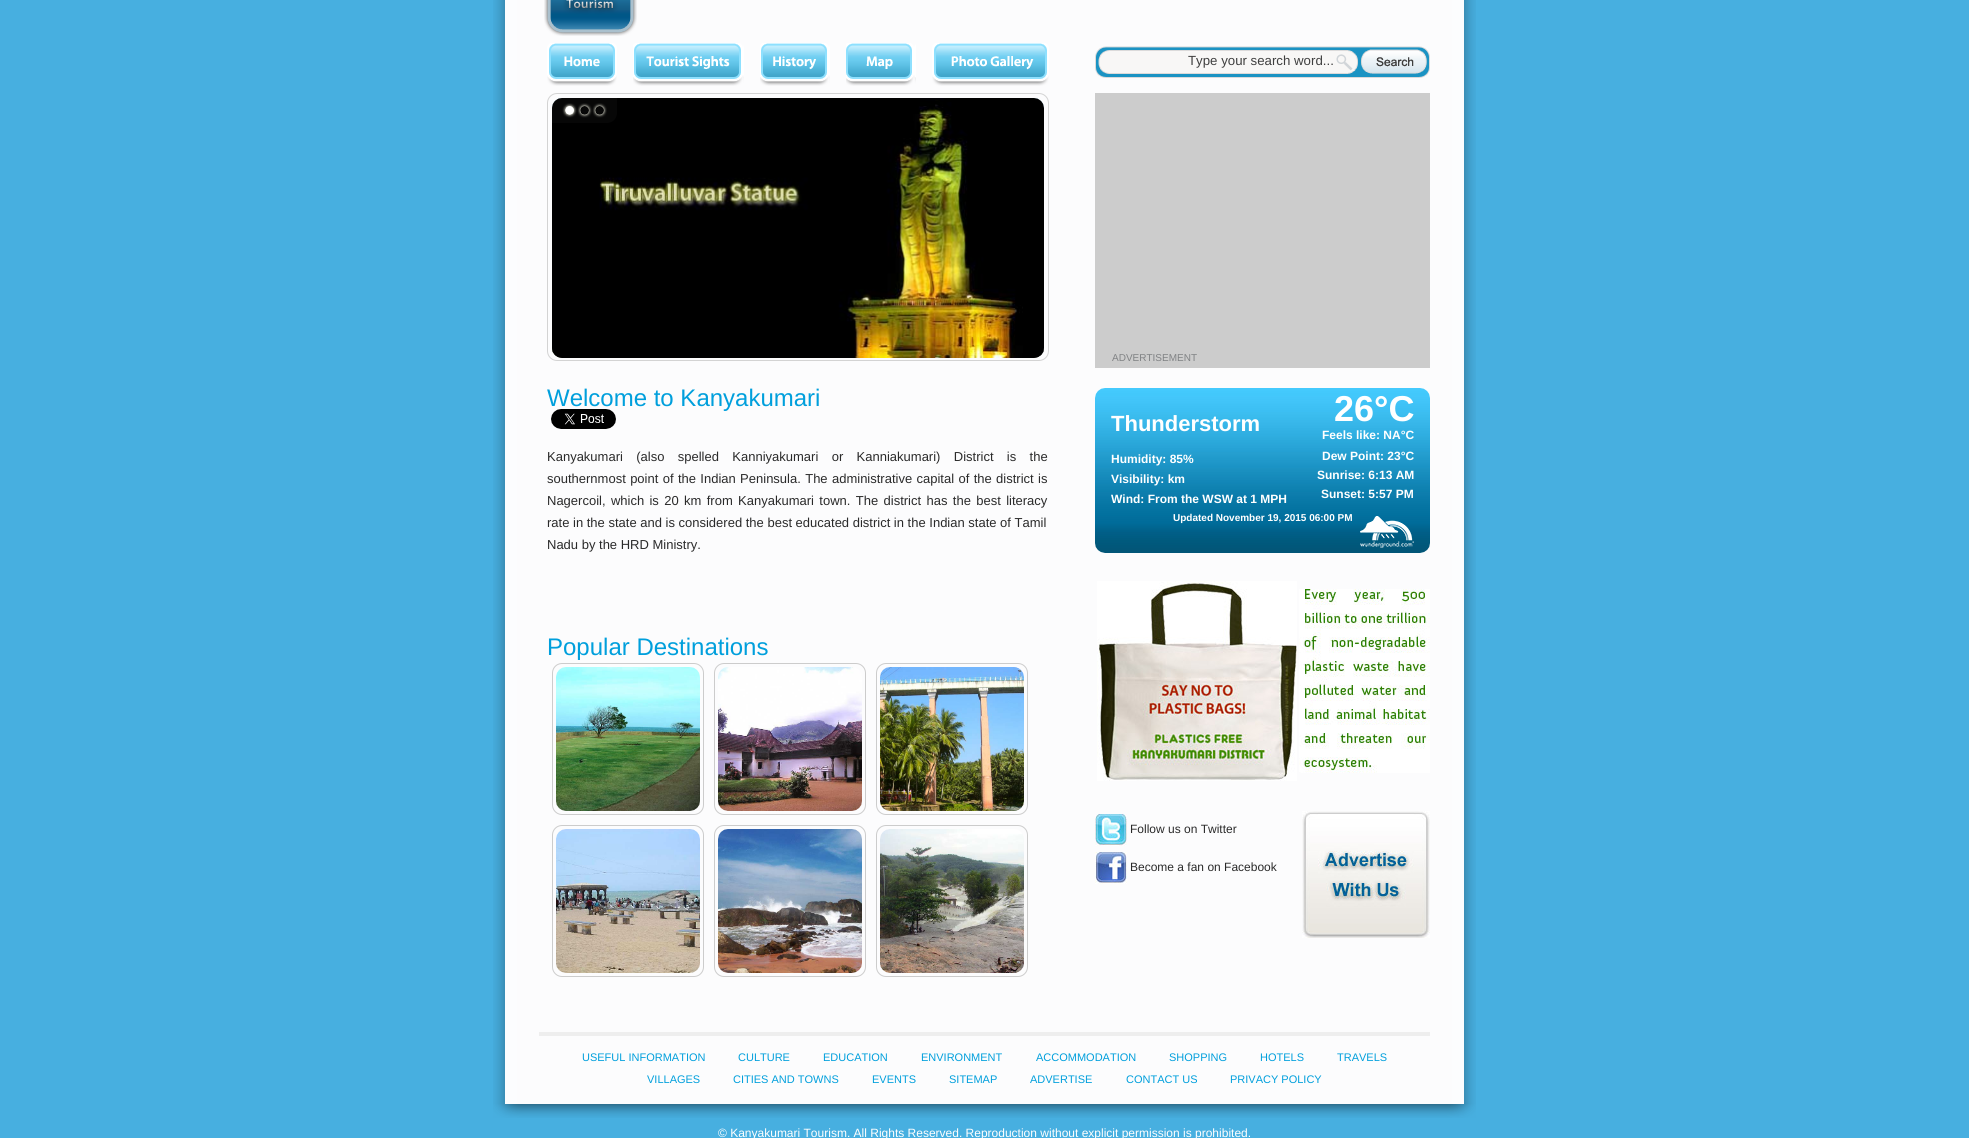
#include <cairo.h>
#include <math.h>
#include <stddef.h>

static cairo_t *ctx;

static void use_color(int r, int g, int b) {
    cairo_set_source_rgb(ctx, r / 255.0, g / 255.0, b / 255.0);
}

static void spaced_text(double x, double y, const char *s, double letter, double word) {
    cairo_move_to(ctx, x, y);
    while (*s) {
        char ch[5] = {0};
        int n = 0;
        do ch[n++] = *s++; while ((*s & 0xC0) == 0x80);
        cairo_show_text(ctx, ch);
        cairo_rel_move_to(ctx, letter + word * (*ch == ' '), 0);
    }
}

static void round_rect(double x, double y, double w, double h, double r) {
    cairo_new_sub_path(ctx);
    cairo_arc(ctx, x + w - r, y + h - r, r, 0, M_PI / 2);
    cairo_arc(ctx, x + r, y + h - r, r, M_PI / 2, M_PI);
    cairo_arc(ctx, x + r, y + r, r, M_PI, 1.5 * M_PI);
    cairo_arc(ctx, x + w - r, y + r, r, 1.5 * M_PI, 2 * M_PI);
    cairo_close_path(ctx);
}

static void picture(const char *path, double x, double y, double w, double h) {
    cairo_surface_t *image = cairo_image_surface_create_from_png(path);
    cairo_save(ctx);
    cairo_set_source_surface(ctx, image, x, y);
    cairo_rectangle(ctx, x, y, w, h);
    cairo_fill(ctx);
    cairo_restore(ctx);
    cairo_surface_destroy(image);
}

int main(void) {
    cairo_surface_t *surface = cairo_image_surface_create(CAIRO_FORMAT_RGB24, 1969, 1138);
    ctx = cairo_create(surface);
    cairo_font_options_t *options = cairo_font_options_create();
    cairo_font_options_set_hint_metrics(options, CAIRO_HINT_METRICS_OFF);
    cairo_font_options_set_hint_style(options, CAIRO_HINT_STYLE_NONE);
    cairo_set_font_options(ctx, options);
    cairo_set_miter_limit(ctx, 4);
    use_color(71, 175, 224);
    cairo_paint(ctx);
    picture("img1.png", 493, 0, 983, 1104);
    picture("img2.png", 544, 0, 93, 36);
    picture("img3.png", 547, 43, 70, 43);
    picture("img4.png", 633, 43, 111, 43);
    picture("img5.png", 760, 43, 70, 43);
    picture("img6.png", 846, 43, 70, 43);
    picture("img7.png", 932, 43, 117, 43);
    picture("img8.png", 1095, 46, 335, 32);
    cairo_select_font_face(ctx, "Liberation Sans", CAIRO_FONT_SLANT_NORMAL, CAIRO_FONT_WEIGHT_NORMAL);
    cairo_set_font_size(ctx, 13.25);
    use_color(63, 63, 63);
    cairo_move_to(ctx, 1188, 65);
    cairo_show_text(ctx, "Type your search word...");
    picture("img9.png", 1361, 49, 66, 25);
    round_rect(547.5, 93.5, 501, 267, 9.5);
    use_color(211, 211, 211);
    cairo_set_line_width(ctx, 1);
    cairo_stroke(ctx);
    picture("img10.png", 552, 98, 492, 260);
    picture("img11.png", 552, 98, 492, 260);
    picture("img12.png", 552, 98, 492, 260);
    cairo_set_source_rgba(ctx, 0.137, 0.137, 0.137, 0.2);
    cairo_new_path(ctx);
    cairo_move_to(ctx, 562, 98);
    cairo_line_to(ctx, 617, 98);
    cairo_line_to(ctx, 617, 113);
    cairo_curve_to(ctx, 617, 118.5, 612.5, 123, 607, 123);
    cairo_line_to(ctx, 552, 123);
    cairo_line_to(ctx, 552, 108);
    cairo_curve_to(ctx, 552, 102.5, 556.5, 98, 562, 98);
    cairo_close_path(ctx);
    cairo_fill(ctx);
    picture("img13.png", 562, 103, 15, 15);
    picture("img14.png", 577, 103, 15, 15);
    picture("img14.png", 592, 103, 15, 15);
    cairo_set_font_size(ctx, 24);
    use_color(0, 159, 220);
    cairo_move_to(ctx, 547, 406);
    cairo_show_text(ctx, "Welcome to Kanyakumari");
    picture("img15.png", 551, 409, 65, 20);
    cairo_set_font_size(ctx, 13);
    use_color(42, 42, 42);
    spaced_text(547, 461, "Kanyakumari (also spelled Kanniyakumari or Kanniakumari) District is the", 0, 9.75);
    spaced_text(547, 483, "southernmost point of the Indian Peninsula. The administrative capital of the district is", 0, 0.75);
    spaced_text(547, 505, "Nagercoil, which is 20 km from Kanyakumari town. The district has the best literacy", 0, 1.75);
    cairo_move_to(ctx, 547, 527);
    cairo_show_text(ctx, "rate in the state and is considered the best educated district in the Indian state of Tamil");
    cairo_move_to(ctx, 547, 549);
    cairo_show_text(ctx, "Nadu by the HRD Ministry.");
    cairo_set_font_size(ctx, 24);
    use_color(0, 159, 220);
    cairo_move_to(ctx, 547, 655);
    cairo_show_text(ctx, "Popular Destinations");
    round_rect(552.5, 663.5, 151, 151, 9.5);
    use_color(204, 204, 204);
    cairo_stroke(ctx);
    picture("img16.png", 556, 667, 144, 144);
    round_rect(714.5, 663.5, 151, 151, 9.5);
    cairo_stroke(ctx);
    picture("img17.png", 718, 667, 144, 144);
    round_rect(876.5, 663.5, 151, 151, 9.5);
    cairo_stroke(ctx);
    picture("img18.png", 880, 667, 144, 144);
    round_rect(552.5, 825.5, 151, 151, 9.5);
    cairo_stroke(ctx);
    picture("img19.png", 556, 829, 144, 144);
    round_rect(714.5, 825.5, 151, 151, 9.5);
    cairo_stroke(ctx);
    picture("img20.png", 718, 829, 144, 144);
    round_rect(876.5, 825.5, 151, 151, 9.5);
    cairo_stroke(ctx);
    picture("img21.png", 880, 829, 144, 144);
    cairo_rectangle(ctx, 1095, 93, 335, 275);
    cairo_fill(ctx);
    cairo_set_font_size(ctx, 10);
    use_color(128, 130, 132);
    cairo_move_to(ctx, 1112, 361);
    cairo_show_text(ctx, "ADVERTISEMENT");
    picture("img22.png", 1095, 388, 335, 165);
    cairo_select_font_face(ctx, "Liberation Sans", CAIRO_FONT_SLANT_NORMAL, CAIRO_FONT_WEIGHT_BOLD);
    cairo_set_font_size(ctx, 22);
    use_color(255, 255, 255);
    cairo_move_to(ctx, 1111, 431);
    cairo_show_text(ctx, "Thunderstorm");
    cairo_set_font_size(ctx, 12);
    cairo_move_to(ctx, 1111, 463);
    cairo_show_text(ctx, "Humidity: 85%");
    cairo_move_to(ctx, 1111, 483);
    cairo_show_text(ctx, "Visibility: km");
    cairo_move_to(ctx, 1111, 503);
    cairo_show_text(ctx, "Wind: From the WSW at 1 MPH");
    cairo_set_font_size(ctx, 36);
    cairo_move_to(ctx, 1334, 421);
    cairo_show_text(ctx, "26°C");
    cairo_set_font_size(ctx, 12);
    cairo_move_to(ctx, 1322, 439);
    cairo_show_text(ctx, "Feels like: NA°C");
    cairo_move_to(ctx, 1322, 460);
    cairo_show_text(ctx, "Dew Point: 23°C");
    cairo_move_to(ctx, 1317, 479);
    cairo_show_text(ctx, "Sunrise: 6:13 AM");
    cairo_move_to(ctx, 1321, 498);
    cairo_show_text(ctx, "Sunset: 5:57 PM");
    picture("img23.png", 1360, 516, 54, 32);
    cairo_set_font_size(ctx, 10);
    cairo_move_to(ctx, 1173, 521);
    cairo_show_text(ctx, "Updated November 19, 2015 06:00 PM");
    picture("img24.png", 1097, 581, 200, 200);
    picture("img25.png", 1299, 589, 131, 184);
    picture("img26.png", 1095, 814, 32, 32);
    cairo_select_font_face(ctx, "Liberation Sans", CAIRO_FONT_SLANT_NORMAL, CAIRO_FONT_WEIGHT_NORMAL);
    cairo_set_font_size(ctx, 12);
    use_color(42, 42, 42);
    cairo_move_to(ctx, 1130, 833);
    cairo_show_text(ctx, "Follow us on Twitter");
    picture("img27.png", 1095, 852, 32, 32);
    cairo_move_to(ctx, 1130, 871);
    cairo_show_text(ctx, "Become a fan on Facebook");
    picture("img28.png", 1302, 811, 128, 127);
    use_color(238, 238, 238);
    cairo_rectangle(ctx, 539, 1032, 891, 4);
    cairo_fill(ctx);
    cairo_set_font_size(ctx, 11);
    use_color(0, 159, 220);
    cairo_move_to(ctx, 582, 1061);
    cairo_show_text(ctx, "USEFUL INFORMATION");
    cairo_move_to(ctx, 738, 1061);
    cairo_show_text(ctx, "CULTURE");
    cairo_move_to(ctx, 823, 1061);
    cairo_show_text(ctx, "EDUCATION");
    cairo_move_to(ctx, 921, 1061);
    cairo_show_text(ctx, "ENVIRONMENT");
    cairo_move_to(ctx, 1036, 1061);
    cairo_show_text(ctx, "ACCOMMODATION");
    cairo_move_to(ctx, 1169, 1061);
    cairo_show_text(ctx, "SHOPPING");
    cairo_move_to(ctx, 1260, 1061);
    cairo_show_text(ctx, "HOTELS");
    cairo_move_to(ctx, 1337, 1061);
    cairo_show_text(ctx, "TRAVELS");
    cairo_move_to(ctx, 647, 1083);
    cairo_show_text(ctx, "VILLAGES");
    cairo_move_to(ctx, 733, 1083);
    cairo_show_text(ctx, "CITIES AND TOWNS");
    cairo_move_to(ctx, 872, 1083);
    cairo_show_text(ctx, "EVENTS");
    cairo_move_to(ctx, 949, 1083);
    cairo_show_text(ctx, "SITEMAP");
    cairo_move_to(ctx, 1030, 1083);
    cairo_show_text(ctx, "ADVERTISE");
    cairo_move_to(ctx, 1126, 1083);
    cairo_show_text(ctx, "CONTACT US");
    cairo_move_to(ctx, 1230, 1083);
    cairo_show_text(ctx, "PRIVACY POLICY");
    picture("img29.png", 493, 1104, 983, 14);
    cairo_set_font_size(ctx, 12);
    use_color(255, 255, 255);
    cairo_move_to(ctx, 718, 1137);
    cairo_show_text(ctx, "© Kanyakumari Tourism. All Rights Reserved. Reproduction without explicit permission is prohibited.");
    cairo_surface_write_to_png(surface, "result.png");
    cairo_font_options_destroy(options);
    cairo_destroy(ctx);
    cairo_surface_destroy(surface);
    return 0;
}
